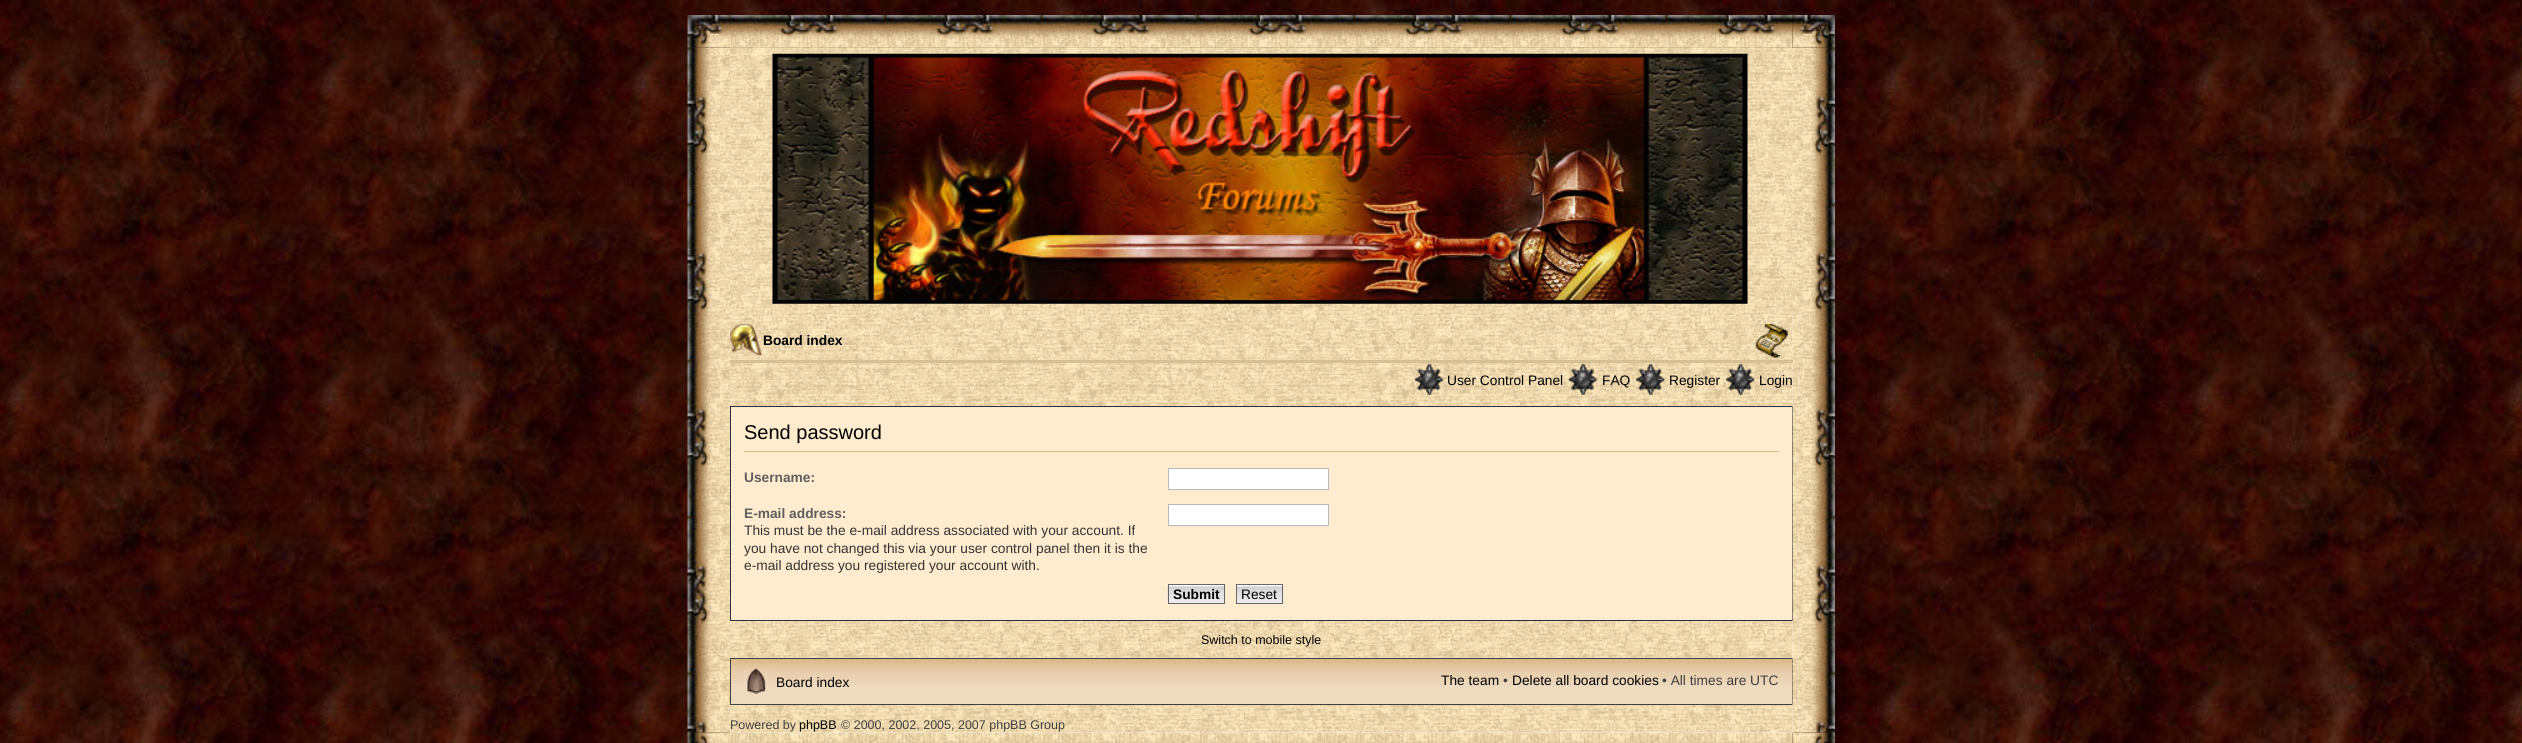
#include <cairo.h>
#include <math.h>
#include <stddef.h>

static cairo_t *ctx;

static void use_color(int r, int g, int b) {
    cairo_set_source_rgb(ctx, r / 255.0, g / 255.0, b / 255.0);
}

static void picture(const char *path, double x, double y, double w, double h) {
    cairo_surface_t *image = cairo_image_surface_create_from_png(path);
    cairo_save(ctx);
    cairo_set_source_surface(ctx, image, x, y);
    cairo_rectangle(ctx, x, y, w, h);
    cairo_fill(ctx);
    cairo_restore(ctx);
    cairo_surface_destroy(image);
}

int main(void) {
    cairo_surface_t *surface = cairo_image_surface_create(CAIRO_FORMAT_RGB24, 2522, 743);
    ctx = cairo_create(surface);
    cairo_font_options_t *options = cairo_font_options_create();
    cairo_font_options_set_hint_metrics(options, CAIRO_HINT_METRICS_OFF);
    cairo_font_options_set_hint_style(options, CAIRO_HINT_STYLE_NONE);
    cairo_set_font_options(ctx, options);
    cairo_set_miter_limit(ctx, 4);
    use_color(255, 255, 255);
    cairo_paint(ctx);
    picture("img1.png", 0, 0, 2522, 743);
    picture("img2.png", 687, 15, 43, 33);
    picture("img3.png", 730, 15, 1063, 33);
    picture("img4.png", 1792, 15, 43, 33);
    picture("img5.png", 687, 47, 43, 686);
    use_color(255, 255, 255);
    cairo_rectangle(ctx, 730, 48, 1063, 685);
    cairo_fill(ctx);
    picture("img6.png", 730, 47, 1063, 686);
    picture("img7.png", 730, 47, 1063, 266);
    picture("img8.png", 772, 53, 976, 251);
    use_color(255, 235, 205);
    cairo_rectangle(ctx, 730.5, 406.5, 1062, 214);
    cairo_fill_preserve(ctx);
    use_color(40, 49, 63);
    cairo_set_line_width(ctx, 1);
    cairo_stroke(ctx);
    picture("img17.png", 730, 657, 1063, 47);
    cairo_rectangle(ctx, 730.5, 658.5, 1062, 46);
    use_color(64, 64, 64);
    cairo_stroke(ctx);
    picture("img19.png", 1792, 47, 43, 686);
    use_color(213, 191, 147);
    cairo_rectangle(ctx, 730, 360, 1063, 3);
    cairo_fill(ctx);
    picture("img9.png", 730, 324, 32, 31);
    cairo_select_font_face(ctx, "Liberation Sans", CAIRO_FONT_SLANT_NORMAL, CAIRO_FONT_WEIGHT_BOLD);
    cairo_set_font_size(ctx, 13.75);
    use_color(0, 0, 0);
    cairo_move_to(ctx, 763, 345);
    cairo_show_text(ctx, "Board index");
    picture("img10.png", 1751, 323, 42, 36);
    picture("img11.png", 1415, 363, 29, 32);
    cairo_select_font_face(ctx, "Liberation Sans", CAIRO_FONT_SLANT_NORMAL, CAIRO_FONT_WEIGHT_NORMAL);
    cairo_move_to(ctx, 1447, 385);
    cairo_show_text(ctx, "User Control Panel");
    picture("img12.png", 1568, 363, 30, 32);
    cairo_move_to(ctx, 1602, 385);
    cairo_show_text(ctx, "FAQ");
    picture("img13.png", 1636, 363, 29, 32);
    cairo_move_to(ctx, 1669, 385);
    cairo_show_text(ctx, "Register");
    picture("img14.png", 1726, 363, 29, 32);
    cairo_move_to(ctx, 1759, 385);
    cairo_show_text(ctx, "Login");
    use_color(213, 191, 147);
    cairo_rectangle(ctx, 744, 451, 1035, 1);
    cairo_fill(ctx);
    cairo_set_font_size(ctx, 20);
    use_color(0, 0, 0);
    cairo_move_to(ctx, 744, 439);
    cairo_show_text(ctx, "Send password");
    cairo_select_font_face(ctx, "Liberation Sans", CAIRO_FONT_SLANT_NORMAL, CAIRO_FONT_WEIGHT_BOLD);
    cairo_set_font_size(ctx, 13.75);
    use_color(95, 95, 95);
    cairo_move_to(ctx, 744, 482);
    cairo_show_text(ctx, "Username:");
    use_color(255, 255, 255);
    cairo_rectangle(ctx, 1168.5, 468.5, 160, 21);
    cairo_fill_preserve(ctx);
    use_color(180, 186, 192);
    cairo_stroke(ctx);
    use_color(95, 95, 95);
    cairo_move_to(ctx, 744, 518);
    cairo_show_text(ctx, "E-mail address:");
    cairo_select_font_face(ctx, "Liberation Sans", CAIRO_FONT_SLANT_NORMAL, CAIRO_FONT_WEIGHT_NORMAL);
    use_color(51, 51, 51);
    cairo_move_to(ctx, 744, 535);
    cairo_show_text(ctx, "This must be the e-mail address associated with your account. If");
    cairo_move_to(ctx, 744, 553);
    cairo_show_text(ctx, "you have not changed this via your user control panel then it is the");
    cairo_move_to(ctx, 744, 570);
    cairo_show_text(ctx, "e-mail address you registered your account with.");
    use_color(255, 255, 255);
    cairo_rectangle(ctx, 1168.5, 504.5, 160, 21);
    cairo_fill_preserve(ctx);
    use_color(180, 186, 192);
    cairo_stroke(ctx);
    picture("img15.png", 1167, 585, 57, 19);
    cairo_rectangle(ctx, 1168.5, 584.5, 56, 19);
    use_color(102, 102, 102);
    cairo_stroke(ctx);
    cairo_select_font_face(ctx, "Liberation Sans", CAIRO_FONT_SLANT_NORMAL, CAIRO_FONT_WEIGHT_BOLD);
    use_color(0, 0, 0);
    cairo_move_to(ctx, 1173, 599);
    cairo_show_text(ctx, "Submit");
    picture("img16.png", 1237, 585, 45, 18);
    cairo_rectangle(ctx, 1236.5, 584.5, 46, 19);
    use_color(102, 102, 102);
    cairo_stroke(ctx);
    cairo_select_font_face(ctx, "Liberation Sans", CAIRO_FONT_SLANT_NORMAL, CAIRO_FONT_WEIGHT_NORMAL);
    use_color(0, 0, 0);
    cairo_move_to(ctx, 1241, 599);
    cairo_show_text(ctx, "Reset");
    cairo_set_font_size(ctx, 12.5);
    cairo_move_to(ctx, 1201, 644);
    cairo_show_text(ctx, "Switch to mobile style");
    picture("img18.png", 744, 668, 25, 26);
    cairo_set_font_size(ctx, 13.75);
    cairo_move_to(ctx, 776, 687);
    cairo_show_text(ctx, "Board index");
    cairo_move_to(ctx, 1441, 685);
    cairo_show_text(ctx, "The team");
    use_color(64, 64, 64);
    cairo_move_to(ctx, 1503, 685);
    cairo_show_text(ctx, "•");
    use_color(0, 0, 0);
    cairo_move_to(ctx, 1512, 685);
    cairo_show_text(ctx, "Delete all board cookies");
    use_color(64, 64, 64);
    cairo_move_to(ctx, 1662, 685);
    cairo_show_text(ctx, "• All times are UTC");
    cairo_set_font_size(ctx, 12.5);
    cairo_move_to(ctx, 730, 729);
    cairo_show_text(ctx, "Powered by");
    use_color(0, 0, 0);
    cairo_move_to(ctx, 799, 729);
    cairo_show_text(ctx, "phpBB");
    use_color(64, 64, 64);
    cairo_move_to(ctx, 841, 729);
    cairo_show_text(ctx, "© 2000, 2002, 2005, 2007 phpBB Group");
    picture("img20.png", 687, 732, 43, 11);
    picture("img21.png", 730, 732, 1063, 11);
    picture("img22.png", 1792, 732, 43, 11);
    cairo_surface_write_to_png(surface, "result.png");
    cairo_font_options_destroy(options);
    cairo_destroy(ctx);
    cairo_surface_destroy(surface);
    return 0;
}
